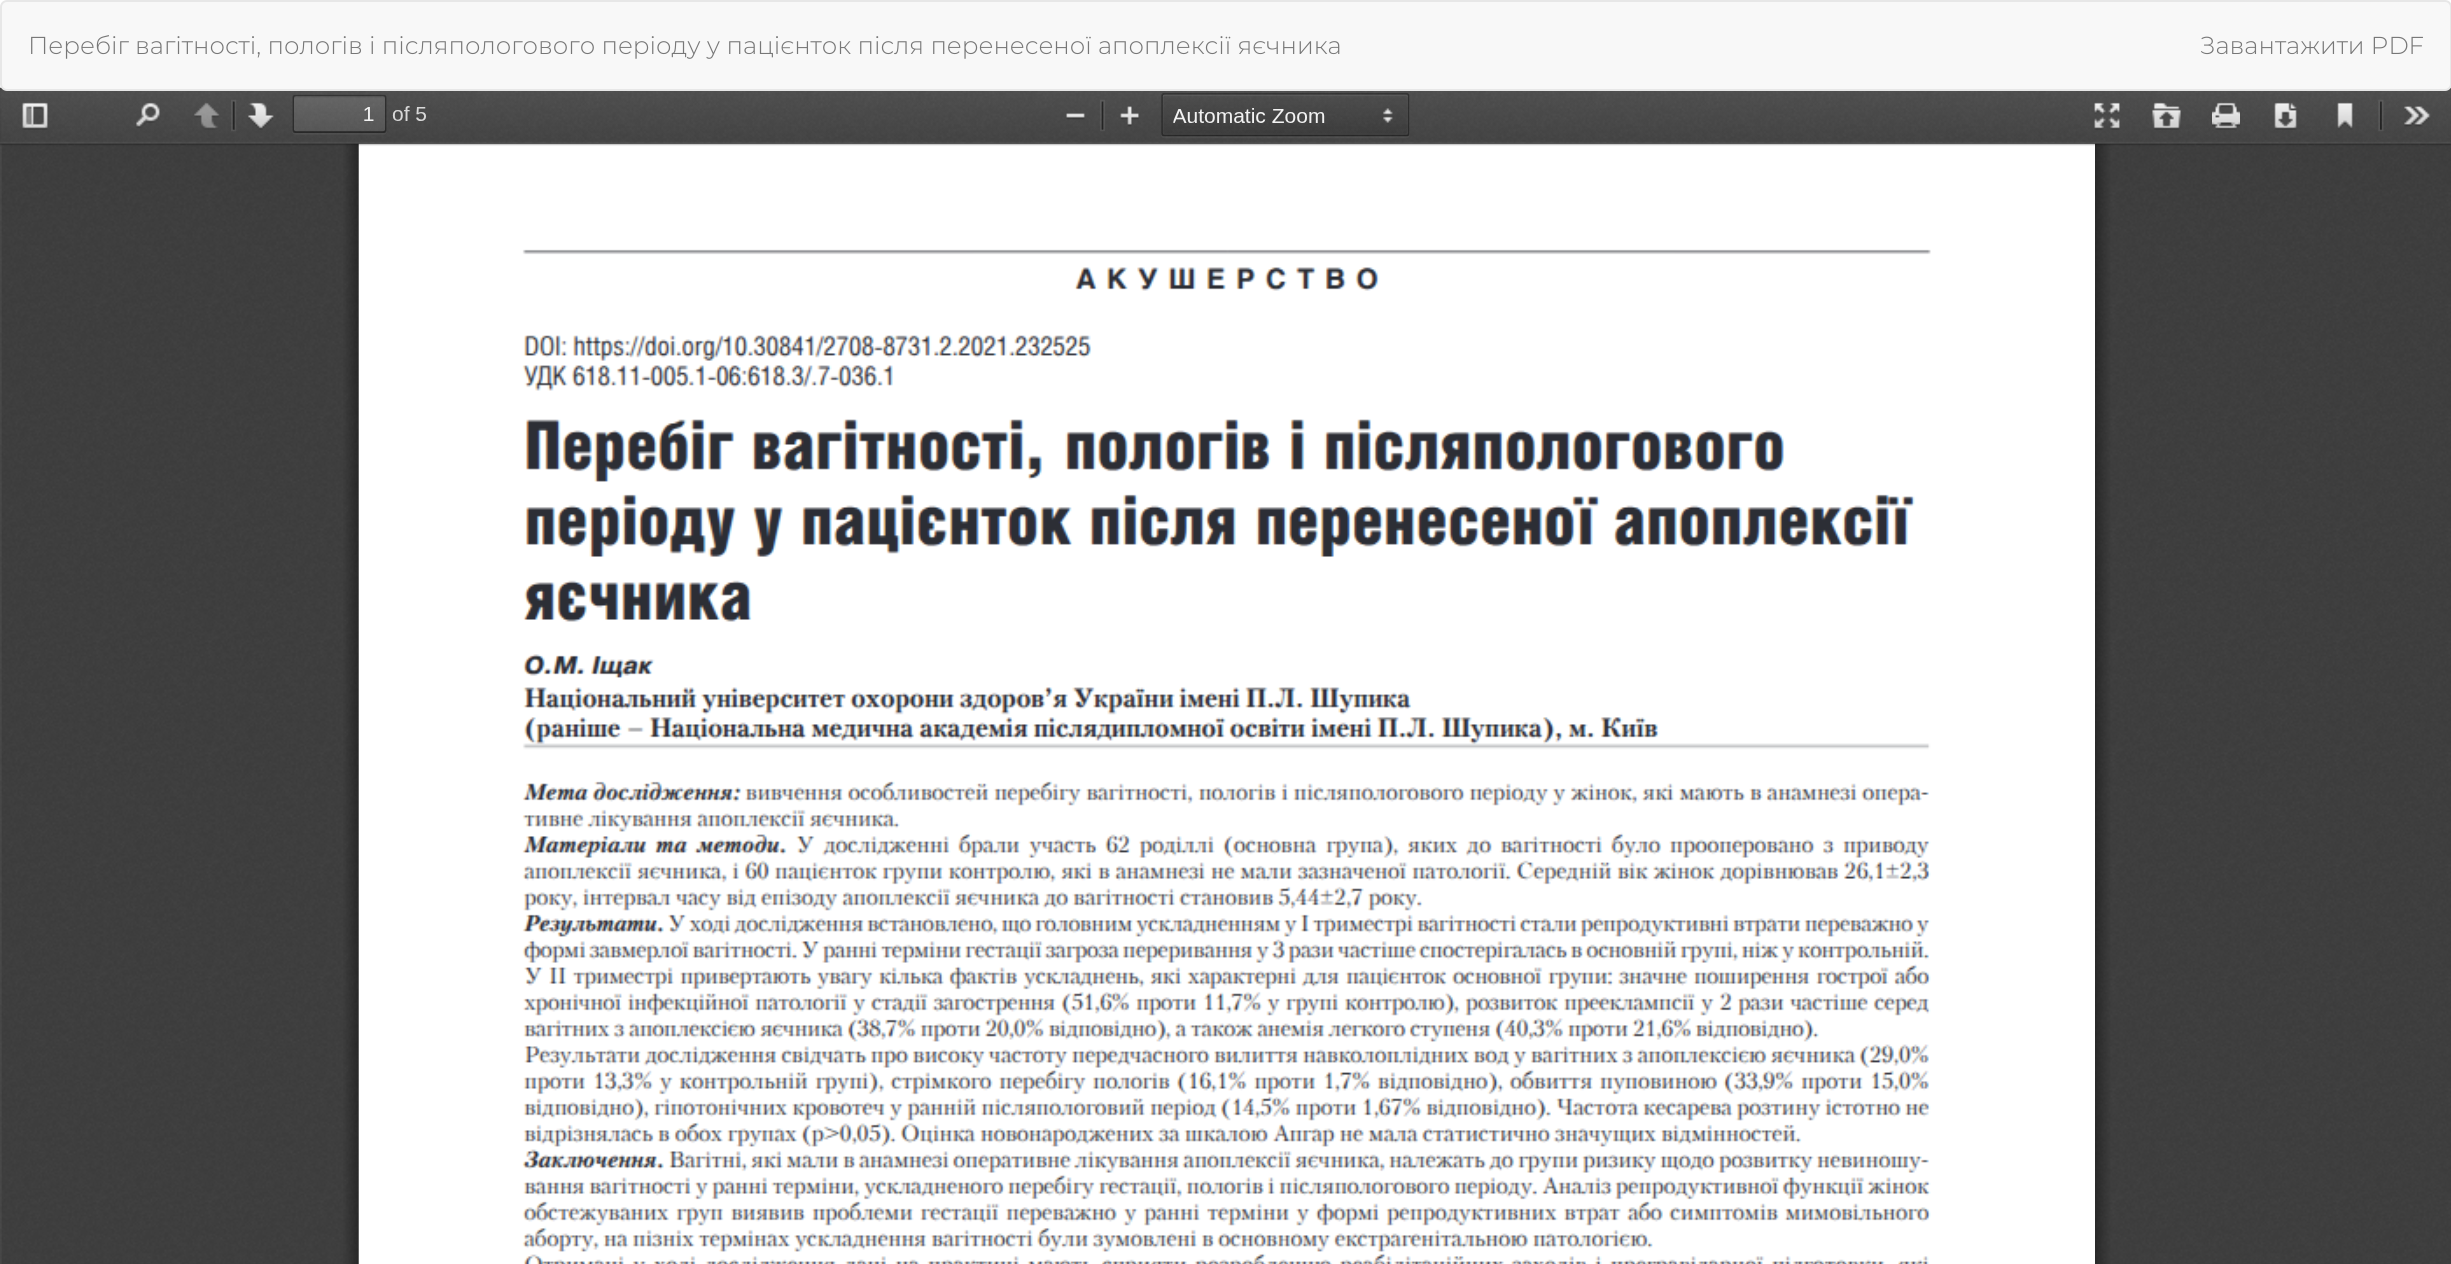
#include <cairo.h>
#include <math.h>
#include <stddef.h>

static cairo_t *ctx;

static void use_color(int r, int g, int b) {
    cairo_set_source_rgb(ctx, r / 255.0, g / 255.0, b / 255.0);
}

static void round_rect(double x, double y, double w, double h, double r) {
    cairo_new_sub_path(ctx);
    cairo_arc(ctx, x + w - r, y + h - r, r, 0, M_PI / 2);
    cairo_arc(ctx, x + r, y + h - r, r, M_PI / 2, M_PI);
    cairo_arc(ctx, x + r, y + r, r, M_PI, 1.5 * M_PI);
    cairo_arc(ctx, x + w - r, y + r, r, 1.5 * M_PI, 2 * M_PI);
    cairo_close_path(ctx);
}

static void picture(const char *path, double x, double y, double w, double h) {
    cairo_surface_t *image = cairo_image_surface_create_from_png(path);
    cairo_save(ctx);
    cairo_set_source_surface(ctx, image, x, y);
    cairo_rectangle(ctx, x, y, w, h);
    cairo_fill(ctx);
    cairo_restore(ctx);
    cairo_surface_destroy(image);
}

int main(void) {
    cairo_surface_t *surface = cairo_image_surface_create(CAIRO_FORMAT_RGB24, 2451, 1264);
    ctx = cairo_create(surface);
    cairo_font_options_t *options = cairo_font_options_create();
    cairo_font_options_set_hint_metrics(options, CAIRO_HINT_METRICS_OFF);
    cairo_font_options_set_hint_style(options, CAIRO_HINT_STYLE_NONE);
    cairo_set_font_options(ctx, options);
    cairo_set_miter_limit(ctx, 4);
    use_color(255, 255, 255);
    cairo_paint(ctx);
    picture("img1.png", 0, 87, 2451, 1177);
    use_color(248, 248, 248);
    round_rect(1, 1, 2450, 89, 6);
    cairo_fill_preserve(ctx);
    use_color(231, 231, 231);
    cairo_stroke(ctx);
    cairo_select_font_face(ctx, "Montserrat Light", CAIRO_FONT_SLANT_NORMAL, CAIRO_FONT_WEIGHT_NORMAL);
    cairo_set_font_size(ctx, 24.5);
    use_color(119, 119, 119);
    cairo_move_to(ctx, 28, 54);
    cairo_show_text(ctx, "Перебіг вагітності, пологів і післяпологового періоду у пацієнток після перенесеної апоплексії яєчника");
    cairo_move_to(ctx, 2200, 54);
    cairo_show_text(ctx, "Завантажити PDF");
    cairo_surface_write_to_png(surface, "result.png");
    cairo_font_options_destroy(options);
    cairo_destroy(ctx);
    cairo_surface_destroy(surface);
    return 0;
}
